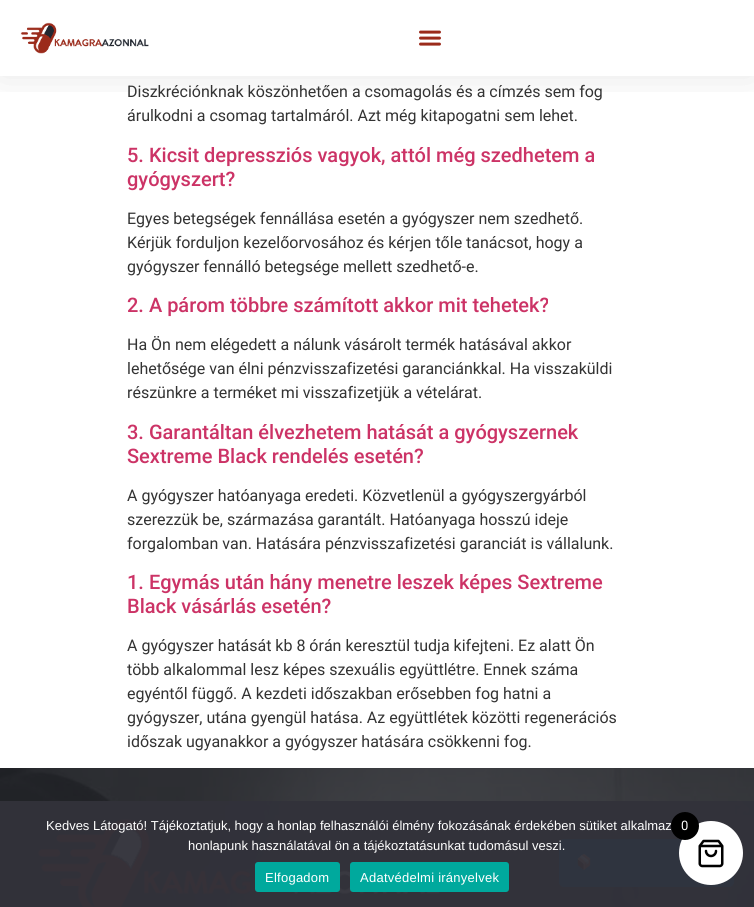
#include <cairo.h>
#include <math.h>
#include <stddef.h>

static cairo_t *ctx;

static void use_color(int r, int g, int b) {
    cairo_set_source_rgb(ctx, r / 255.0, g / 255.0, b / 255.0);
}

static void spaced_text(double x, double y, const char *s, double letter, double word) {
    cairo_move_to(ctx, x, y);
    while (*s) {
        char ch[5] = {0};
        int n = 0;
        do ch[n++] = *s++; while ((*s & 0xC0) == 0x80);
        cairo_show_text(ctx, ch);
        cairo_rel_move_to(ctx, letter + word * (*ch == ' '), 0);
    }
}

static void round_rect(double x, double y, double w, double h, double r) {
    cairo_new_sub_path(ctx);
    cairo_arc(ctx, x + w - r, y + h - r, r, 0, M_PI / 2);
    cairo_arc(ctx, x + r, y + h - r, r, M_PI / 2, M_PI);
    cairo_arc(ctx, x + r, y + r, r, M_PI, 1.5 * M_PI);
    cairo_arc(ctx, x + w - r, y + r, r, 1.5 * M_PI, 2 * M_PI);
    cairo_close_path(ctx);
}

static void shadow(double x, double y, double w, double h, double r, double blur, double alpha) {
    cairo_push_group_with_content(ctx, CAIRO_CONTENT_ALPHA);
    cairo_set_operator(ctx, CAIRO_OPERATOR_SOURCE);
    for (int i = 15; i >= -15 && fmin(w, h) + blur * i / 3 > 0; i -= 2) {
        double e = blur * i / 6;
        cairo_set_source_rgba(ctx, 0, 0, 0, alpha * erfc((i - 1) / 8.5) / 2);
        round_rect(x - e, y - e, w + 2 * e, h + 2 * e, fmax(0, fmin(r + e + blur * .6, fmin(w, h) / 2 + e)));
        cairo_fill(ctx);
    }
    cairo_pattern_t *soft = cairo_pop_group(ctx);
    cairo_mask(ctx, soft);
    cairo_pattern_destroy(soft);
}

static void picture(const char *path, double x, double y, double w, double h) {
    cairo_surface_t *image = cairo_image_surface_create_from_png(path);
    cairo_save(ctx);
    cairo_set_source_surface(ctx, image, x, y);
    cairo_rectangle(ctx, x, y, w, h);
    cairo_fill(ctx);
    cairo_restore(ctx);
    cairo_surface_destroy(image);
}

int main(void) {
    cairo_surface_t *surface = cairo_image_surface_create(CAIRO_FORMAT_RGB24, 754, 907);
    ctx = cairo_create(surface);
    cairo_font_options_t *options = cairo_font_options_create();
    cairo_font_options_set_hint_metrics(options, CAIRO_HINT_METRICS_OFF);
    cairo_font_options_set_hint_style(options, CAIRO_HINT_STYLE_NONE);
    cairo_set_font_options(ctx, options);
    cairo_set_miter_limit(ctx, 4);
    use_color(255, 255, 255);
    cairo_paint(ctx);
    cairo_save(ctx);
    cairo_rectangle(ctx, 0, 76, 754, 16);
    cairo_clip(ctx);
    use_color(0, 0, 0);
    shadow(0, 0, 754, 76, 0, 19, 0.1);
    cairo_restore(ctx);
    picture("img1.png", 20, 22, 129, 32);
    picture("img2.png", 419, 30, 22, 16);
    cairo_select_font_face(ctx, "Roboto", CAIRO_FONT_SLANT_NORMAL, CAIRO_FONT_WEIGHT_NORMAL);
    cairo_set_font_size(ctx, 16);
    use_color(51, 51, 51);
    cairo_move_to(ctx, 127, 97);
    cairo_show_text(ctx, "Diszkréciónknak köszönhetően a csomagolás és a címzés sem fog");
    cairo_move_to(ctx, 127, 121);
    cairo_show_text(ctx, "árulkodni a csomag tartalmáról. Azt még kitapogatni sem lehet.");
    cairo_select_font_face(ctx, "Roboto Medium", CAIRO_FONT_SLANT_NORMAL, CAIRO_FONT_WEIGHT_NORMAL);
    cairo_set_font_size(ctx, 20);
    use_color(204, 51, 102);
    cairo_move_to(ctx, 127, 162);
    cairo_show_text(ctx, "5. Kicsit depressziós vagyok, attól még szedhetem a");
    cairo_move_to(ctx, 127, 186);
    cairo_show_text(ctx, "gyógyszert?");
    cairo_select_font_face(ctx, "Roboto", CAIRO_FONT_SLANT_NORMAL, CAIRO_FONT_WEIGHT_NORMAL);
    cairo_set_font_size(ctx, 16);
    use_color(51, 51, 51);
    cairo_move_to(ctx, 127, 224);
    cairo_show_text(ctx, "Egyes betegségek fennállása esetén a gyógyszer nem szedhető.");
    cairo_move_to(ctx, 127, 248);
    cairo_show_text(ctx, "Kérjük forduljon kezelőorvosához és kérjen tőle tanácsot, hogy a");
    cairo_move_to(ctx, 127, 272);
    cairo_show_text(ctx, "gyógyszer fennálló betegsége mellett szedhető-e.");
    cairo_select_font_face(ctx, "Roboto Medium", CAIRO_FONT_SLANT_NORMAL, CAIRO_FONT_WEIGHT_NORMAL);
    cairo_set_font_size(ctx, 20);
    use_color(204, 51, 102);
    cairo_move_to(ctx, 127, 312);
    cairo_show_text(ctx, "2. A párom többre számított akkor mit tehetek?");
    cairo_select_font_face(ctx, "Roboto", CAIRO_FONT_SLANT_NORMAL, CAIRO_FONT_WEIGHT_NORMAL);
    cairo_set_font_size(ctx, 16);
    use_color(51, 51, 51);
    cairo_move_to(ctx, 127, 350);
    cairo_show_text(ctx, "Ha Ön nem elégedett a nálunk vásárolt termék hatásával akkor");
    cairo_move_to(ctx, 127, 374);
    cairo_show_text(ctx, "lehetősége van élni pénzvisszafizetési garanciánkkal. Ha visszaküldi");
    cairo_move_to(ctx, 127, 398);
    cairo_show_text(ctx, "részünkre a terméket mi visszafizetjük a vételárat.");
    cairo_select_font_face(ctx, "Roboto Medium", CAIRO_FONT_SLANT_NORMAL, CAIRO_FONT_WEIGHT_NORMAL);
    cairo_set_font_size(ctx, 20);
    use_color(204, 51, 102);
    cairo_move_to(ctx, 127, 439);
    cairo_show_text(ctx, "3. Garantáltan élvezhetem hatását a gyógyszernek");
    cairo_move_to(ctx, 127, 463);
    cairo_show_text(ctx, "Sextreme Black rendelés esetén?");
    cairo_select_font_face(ctx, "Roboto", CAIRO_FONT_SLANT_NORMAL, CAIRO_FONT_WEIGHT_NORMAL);
    cairo_set_font_size(ctx, 16);
    use_color(51, 51, 51);
    cairo_move_to(ctx, 127, 501);
    cairo_show_text(ctx, "A gyógyszer hatóanyaga eredeti. Közvetlenül a gyógyszergyárból");
    cairo_move_to(ctx, 127, 525);
    cairo_show_text(ctx, "szerezzük be, származása garantált. Hatóanyaga hosszú ideje");
    cairo_move_to(ctx, 127, 549);
    cairo_show_text(ctx, "forgalomban van. Hatására pénzvisszafizetési garanciát is vállalunk.");
    cairo_select_font_face(ctx, "Roboto Medium", CAIRO_FONT_SLANT_NORMAL, CAIRO_FONT_WEIGHT_NORMAL);
    cairo_set_font_size(ctx, 20);
    use_color(204, 51, 102);
    cairo_move_to(ctx, 127, 589);
    cairo_show_text(ctx, "1. Egymás után hány menetre leszek képes Sextreme");
    cairo_move_to(ctx, 127, 613);
    cairo_show_text(ctx, "Black vásárlás esetén?");
    cairo_select_font_face(ctx, "Roboto", CAIRO_FONT_SLANT_NORMAL, CAIRO_FONT_WEIGHT_NORMAL);
    cairo_set_font_size(ctx, 16);
    use_color(51, 51, 51);
    cairo_move_to(ctx, 127, 651);
    cairo_show_text(ctx, "A gyógyszer hatását kb 8 órán keresztül tudja kifejteni. Ez alatt Ön");
    cairo_move_to(ctx, 127, 675);
    cairo_show_text(ctx, "több alkalommal lesz képes szexuális együttlétre. Ennek száma");
    cairo_move_to(ctx, 127, 699);
    cairo_show_text(ctx, "egyéntől függő. A kezdeti időszakban erősebben fog hatni a");
    cairo_move_to(ctx, 127, 723);
    cairo_show_text(ctx, "gyógyszer, utána gyengül hatása. Az együttlétek közötti regenerációs");
    cairo_move_to(ctx, 127, 747);
    cairo_show_text(ctx, "időszak ugyanakkor a gyógyszer hatására csökkenni fog.");
    picture("img3.png", 0, 768, 754, 139);
    picture("img4.png", 38, 819, 402, 88);
    use_color(0, 115, 170);
    round_rect(559, 839, 175, 48, 5);
    cairo_fill(ctx);
    picture("img6.png", 577, 854, 14, 16);
    cairo_set_source_rgba(ctx, 0.196, 0.196, 0.227, 0.95);
    cairo_rectangle(ctx, 0, 801, 754, 106);
    cairo_fill(ctx);
    cairo_select_font_face(ctx, "Liberation Sans", CAIRO_FONT_SLANT_NORMAL, CAIRO_FONT_WEIGHT_NORMAL);
    cairo_set_font_size(ctx, 13);
    use_color(255, 255, 255);
    cairo_move_to(ctx, 46, 830);
    cairo_show_text(ctx, "Kedves Látogató! Tájékoztatjuk, hogy a honlap felhasználói élmény fokozásának érdekében sütiket alkalmaz");
    cairo_move_to(ctx, 188, 850);
    cairo_show_text(ctx, "honlapunk használatával ön a tájékoztatásunkat tudomásul veszi.");
    use_color(0, 169, 157);
    round_rect(255, 862, 85, 30, 3);
    cairo_fill(ctx);
    use_color(255, 255, 255);
    spaced_text(265, 882, "Elfogadom", 0.25, 0);
    use_color(0, 169, 157);
    round_rect(350, 862, 159, 30, 3);
    cairo_fill(ctx);
    use_color(255, 255, 255);
    spaced_text(360, 882, "Adatvédelmi irányelvek", 0.25, 0);
    cairo_new_path(ctx);
    cairo_arc(ctx, 711, 853, 32, 0, 2 * M_PI);
    cairo_fill(ctx);
    picture("img5.png", 698, 839, 26, 29);
    use_color(0, 0, 0);
    cairo_arc(ctx, 685, 826, 14, 0, 2 * M_PI);
    cairo_fill(ctx);
    cairo_select_font_face(ctx, "Roboto", CAIRO_FONT_SLANT_NORMAL, CAIRO_FONT_WEIGHT_NORMAL);
    use_color(255, 255, 255);
    cairo_move_to(ctx, 681, 830);
    cairo_show_text(ctx, "0");
    cairo_surface_write_to_png(surface, "result.png");
    cairo_font_options_destroy(options);
    cairo_destroy(ctx);
    cairo_surface_destroy(surface);
    return 0;
}
